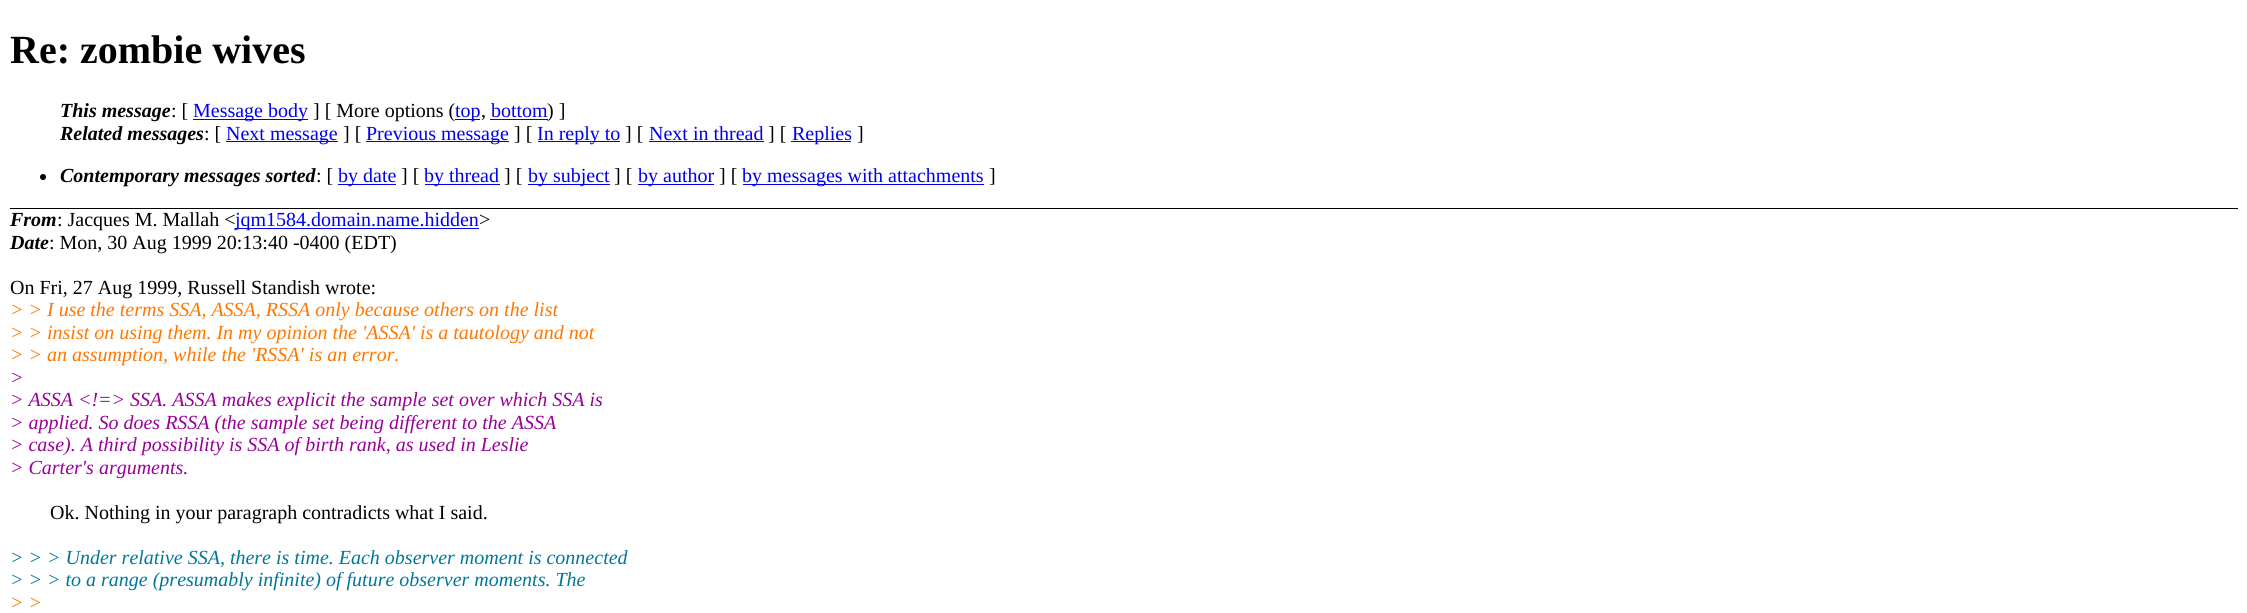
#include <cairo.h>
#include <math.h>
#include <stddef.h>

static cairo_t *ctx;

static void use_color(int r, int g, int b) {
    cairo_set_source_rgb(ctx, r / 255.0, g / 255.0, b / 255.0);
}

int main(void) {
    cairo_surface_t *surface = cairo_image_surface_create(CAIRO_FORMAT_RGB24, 2247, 613);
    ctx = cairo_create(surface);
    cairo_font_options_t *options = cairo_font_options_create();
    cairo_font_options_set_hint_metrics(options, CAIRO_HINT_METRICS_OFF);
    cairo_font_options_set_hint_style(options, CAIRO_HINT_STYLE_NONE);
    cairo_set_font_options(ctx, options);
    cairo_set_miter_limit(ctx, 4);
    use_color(255, 255, 255);
    cairo_paint(ctx);
    use_color(0, 0, 0);
    cairo_rectangle(ctx, 10, 208, 2228, 1);
    cairo_fill(ctx);
    cairo_select_font_face(ctx, "Liberation Serif", CAIRO_FONT_SLANT_NORMAL, CAIRO_FONT_WEIGHT_BOLD);
    cairo_set_font_size(ctx, 40);
    cairo_move_to(ctx, 10, 63);
    cairo_show_text(ctx, "Re: zombie wives");
    cairo_select_font_face(ctx, "Liberation Serif", CAIRO_FONT_SLANT_ITALIC, CAIRO_FONT_WEIGHT_BOLD);
    cairo_set_font_size(ctx, 20);
    cairo_move_to(ctx, 60, 117);
    cairo_show_text(ctx, "This message");
    cairo_select_font_face(ctx, "Liberation Serif", CAIRO_FONT_SLANT_NORMAL, CAIRO_FONT_WEIGHT_NORMAL);
    cairo_move_to(ctx, 171, 117);
    cairo_show_text(ctx, ": [");
    use_color(0, 0, 238);
    cairo_rectangle(ctx, 193, 119, 115, 1);
    cairo_fill(ctx);
    cairo_move_to(ctx, 193, 117);
    cairo_show_text(ctx, "Message body");
    use_color(0, 0, 0);
    cairo_move_to(ctx, 313, 117);
    cairo_show_text(ctx, "] [ More options (");
    use_color(0, 0, 238);
    cairo_rectangle(ctx, 455, 119, 25, 1);
    cairo_fill(ctx);
    cairo_move_to(ctx, 455, 117);
    cairo_show_text(ctx, "top");
    use_color(0, 0, 0);
    cairo_move_to(ctx, 481, 117);
    cairo_show_text(ctx, ",");
    use_color(0, 0, 238);
    cairo_move_to(ctx, 491, 117);
    cairo_show_text(ctx, "bottom");
    cairo_rectangle(ctx, 490, 119, 58, 1);
    cairo_fill(ctx);
    use_color(0, 0, 0);
    cairo_move_to(ctx, 547, 117);
    cairo_show_text(ctx, ") ]");
    cairo_select_font_face(ctx, "Liberation Serif", CAIRO_FONT_SLANT_ITALIC, CAIRO_FONT_WEIGHT_BOLD);
    cairo_move_to(ctx, 60, 140);
    cairo_show_text(ctx, "Related messages");
    cairo_select_font_face(ctx, "Liberation Serif", CAIRO_FONT_SLANT_NORMAL, CAIRO_FONT_WEIGHT_NORMAL);
    cairo_move_to(ctx, 204, 140);
    cairo_show_text(ctx, ": [");
    use_color(0, 0, 238);
    cairo_rectangle(ctx, 226, 141, 112, 1);
    cairo_fill(ctx);
    cairo_move_to(ctx, 226, 140);
    cairo_show_text(ctx, "Next message");
    use_color(0, 0, 0);
    cairo_move_to(ctx, 343, 140);
    cairo_show_text(ctx, "] [");
    use_color(0, 0, 238);
    cairo_rectangle(ctx, 366, 141, 143, 1);
    cairo_fill(ctx);
    cairo_move_to(ctx, 366, 140);
    cairo_show_text(ctx, "Previous message");
    use_color(0, 0, 0);
    cairo_move_to(ctx, 514, 140);
    cairo_show_text(ctx, "] [");
    use_color(0, 0, 238);
    cairo_rectangle(ctx, 538, 141, 82, 1);
    cairo_fill(ctx);
    cairo_move_to(ctx, 537, 140);
    cairo_show_text(ctx, "In reply to");
    use_color(0, 0, 0);
    cairo_move_to(ctx, 625, 140);
    cairo_show_text(ctx, "] [");
    use_color(0, 0, 238);
    cairo_move_to(ctx, 649, 140);
    cairo_show_text(ctx, "Next in thread");
    cairo_rectangle(ctx, 649, 141, 115, 1);
    cairo_fill(ctx);
    use_color(0, 0, 0);
    cairo_move_to(ctx, 768, 140);
    cairo_show_text(ctx, "] [");
    use_color(0, 0, 238);
    cairo_rectangle(ctx, 791, 141, 60, 1);
    cairo_fill(ctx);
    cairo_move_to(ctx, 792, 140);
    cairo_show_text(ctx, "Replies");
    use_color(0, 0, 0);
    cairo_move_to(ctx, 857, 140);
    cairo_show_text(ctx, "]");
    cairo_new_path(ctx);
    cairo_arc(ctx, 43, 177, 3, 0, 2 * M_PI);
    cairo_fill(ctx);
    cairo_select_font_face(ctx, "Liberation Serif", CAIRO_FONT_SLANT_ITALIC, CAIRO_FONT_WEIGHT_BOLD);
    cairo_move_to(ctx, 60, 182);
    cairo_show_text(ctx, "Contemporary messages sorted");
    cairo_select_font_face(ctx, "Liberation Serif", CAIRO_FONT_SLANT_NORMAL, CAIRO_FONT_WEIGHT_NORMAL);
    cairo_move_to(ctx, 316, 182);
    cairo_show_text(ctx, ": [");
    use_color(0, 0, 238);
    cairo_rectangle(ctx, 338, 184, 58, 1);
    cairo_fill(ctx);
    cairo_move_to(ctx, 338, 182);
    cairo_show_text(ctx, "by date");
    use_color(0, 0, 0);
    cairo_move_to(ctx, 401, 182);
    cairo_show_text(ctx, "] [");
    use_color(0, 0, 238);
    cairo_rectangle(ctx, 425, 184, 75, 1);
    cairo_fill(ctx);
    cairo_move_to(ctx, 424, 182);
    cairo_show_text(ctx, "by thread");
    use_color(0, 0, 0);
    cairo_move_to(ctx, 504, 182);
    cairo_show_text(ctx, "] [");
    use_color(0, 0, 238);
    cairo_rectangle(ctx, 528, 184, 82, 1);
    cairo_fill(ctx);
    cairo_move_to(ctx, 528, 182);
    cairo_show_text(ctx, "by subject");
    use_color(0, 0, 0);
    cairo_move_to(ctx, 614, 182);
    cairo_show_text(ctx, "] [");
    use_color(0, 0, 238);
    cairo_rectangle(ctx, 638, 184, 76, 1);
    cairo_fill(ctx);
    cairo_move_to(ctx, 638, 182);
    cairo_show_text(ctx, "by author");
    use_color(0, 0, 0);
    cairo_move_to(ctx, 719, 182);
    cairo_show_text(ctx, "] [");
    use_color(0, 0, 238);
    cairo_rectangle(ctx, 743, 184, 241, 1);
    cairo_fill(ctx);
    cairo_move_to(ctx, 742, 182);
    cairo_show_text(ctx, "by messages with attachments");
    use_color(0, 0, 0);
    cairo_move_to(ctx, 989, 182);
    cairo_show_text(ctx, "]");
    cairo_select_font_face(ctx, "Liberation Serif", CAIRO_FONT_SLANT_ITALIC, CAIRO_FONT_WEIGHT_BOLD);
    cairo_move_to(ctx, 10, 226);
    cairo_show_text(ctx, "From");
    cairo_select_font_face(ctx, "Liberation Serif", CAIRO_FONT_SLANT_NORMAL, CAIRO_FONT_WEIGHT_NORMAL);
    cairo_move_to(ctx, 57, 226);
    cairo_show_text(ctx, ": Jacques M. Mallah <");
    use_color(0, 0, 238);
    cairo_rectangle(ctx, 235, 228, 244, 1);
    cairo_fill(ctx);
    cairo_move_to(ctx, 235, 226);
    cairo_show_text(ctx, "jqm1584.domain.name.hidden");
    use_color(0, 0, 0);
    cairo_move_to(ctx, 479, 226);
    cairo_show_text(ctx, ">");
    cairo_select_font_face(ctx, "Liberation Serif", CAIRO_FONT_SLANT_ITALIC, CAIRO_FONT_WEIGHT_BOLD);
    cairo_move_to(ctx, 10, 249);
    cairo_show_text(ctx, "Date");
    cairo_select_font_face(ctx, "Liberation Serif", CAIRO_FONT_SLANT_NORMAL, CAIRO_FONT_WEIGHT_NORMAL);
    cairo_move_to(ctx, 49, 249);
    cairo_show_text(ctx, ": Mon, 30 Aug 1999 20:13:40 -0400 (EDT)");
    cairo_move_to(ctx, 10, 294);
    cairo_show_text(ctx, "On Fri, 27 Aug 1999, Russell Standish wrote:");
    cairo_select_font_face(ctx, "Liberation Serif", CAIRO_FONT_SLANT_ITALIC, CAIRO_FONT_WEIGHT_NORMAL);
    use_color(255, 119, 0);
    cairo_move_to(ctx, 10, 316);
    cairo_show_text(ctx, "> > I use the terms SSA, ASSA, RSSA only because others on the list");
    cairo_move_to(ctx, 10, 339);
    cairo_show_text(ctx, "> > insist on using them. In my opinion the 'ASSA' is a tautology and not");
    cairo_move_to(ctx, 10, 361);
    cairo_show_text(ctx, "> > an assumption, while the 'RSSA' is an error.");
    use_color(153, 0, 153);
    cairo_move_to(ctx, 10, 384);
    cairo_show_text(ctx, ">");
    cairo_move_to(ctx, 10, 406);
    cairo_show_text(ctx, "> ASSA <!=> SSA. ASSA makes explicit the sample set over which SSA is");
    cairo_move_to(ctx, 10, 429);
    cairo_show_text(ctx, "> applied. So does RSSA (the sample set being different to the ASSA");
    cairo_move_to(ctx, 10, 451);
    cairo_show_text(ctx, "> case). A third possibility is SSA of birth rank, as used in Leslie");
    cairo_move_to(ctx, 10, 474);
    cairo_show_text(ctx, "> Carter's arguments.");
    cairo_select_font_face(ctx, "Liberation Serif", CAIRO_FONT_SLANT_NORMAL, CAIRO_FONT_WEIGHT_NORMAL);
    use_color(0, 0, 0);
    cairo_move_to(ctx, 50, 519);
    cairo_show_text(ctx, "Ok. Nothing in your paragraph contradicts what I said.");
    cairo_select_font_face(ctx, "Liberation Serif", CAIRO_FONT_SLANT_ITALIC, CAIRO_FONT_WEIGHT_NORMAL);
    use_color(0, 119, 153);
    cairo_move_to(ctx, 10, 564);
    cairo_show_text(ctx, "> > > Under relative SSA, there is time. Each observer moment is connected");
    cairo_move_to(ctx, 10, 586);
    cairo_show_text(ctx, "> > > to a range (presumably infinite) of future observer moments. The");
    use_color(255, 119, 0);
    cairo_move_to(ctx, 10, 609);
    cairo_show_text(ctx, "> >");
    cairo_surface_write_to_png(surface, "result.png");
    cairo_font_options_destroy(options);
    cairo_destroy(ctx);
    cairo_surface_destroy(surface);
    return 0;
}
